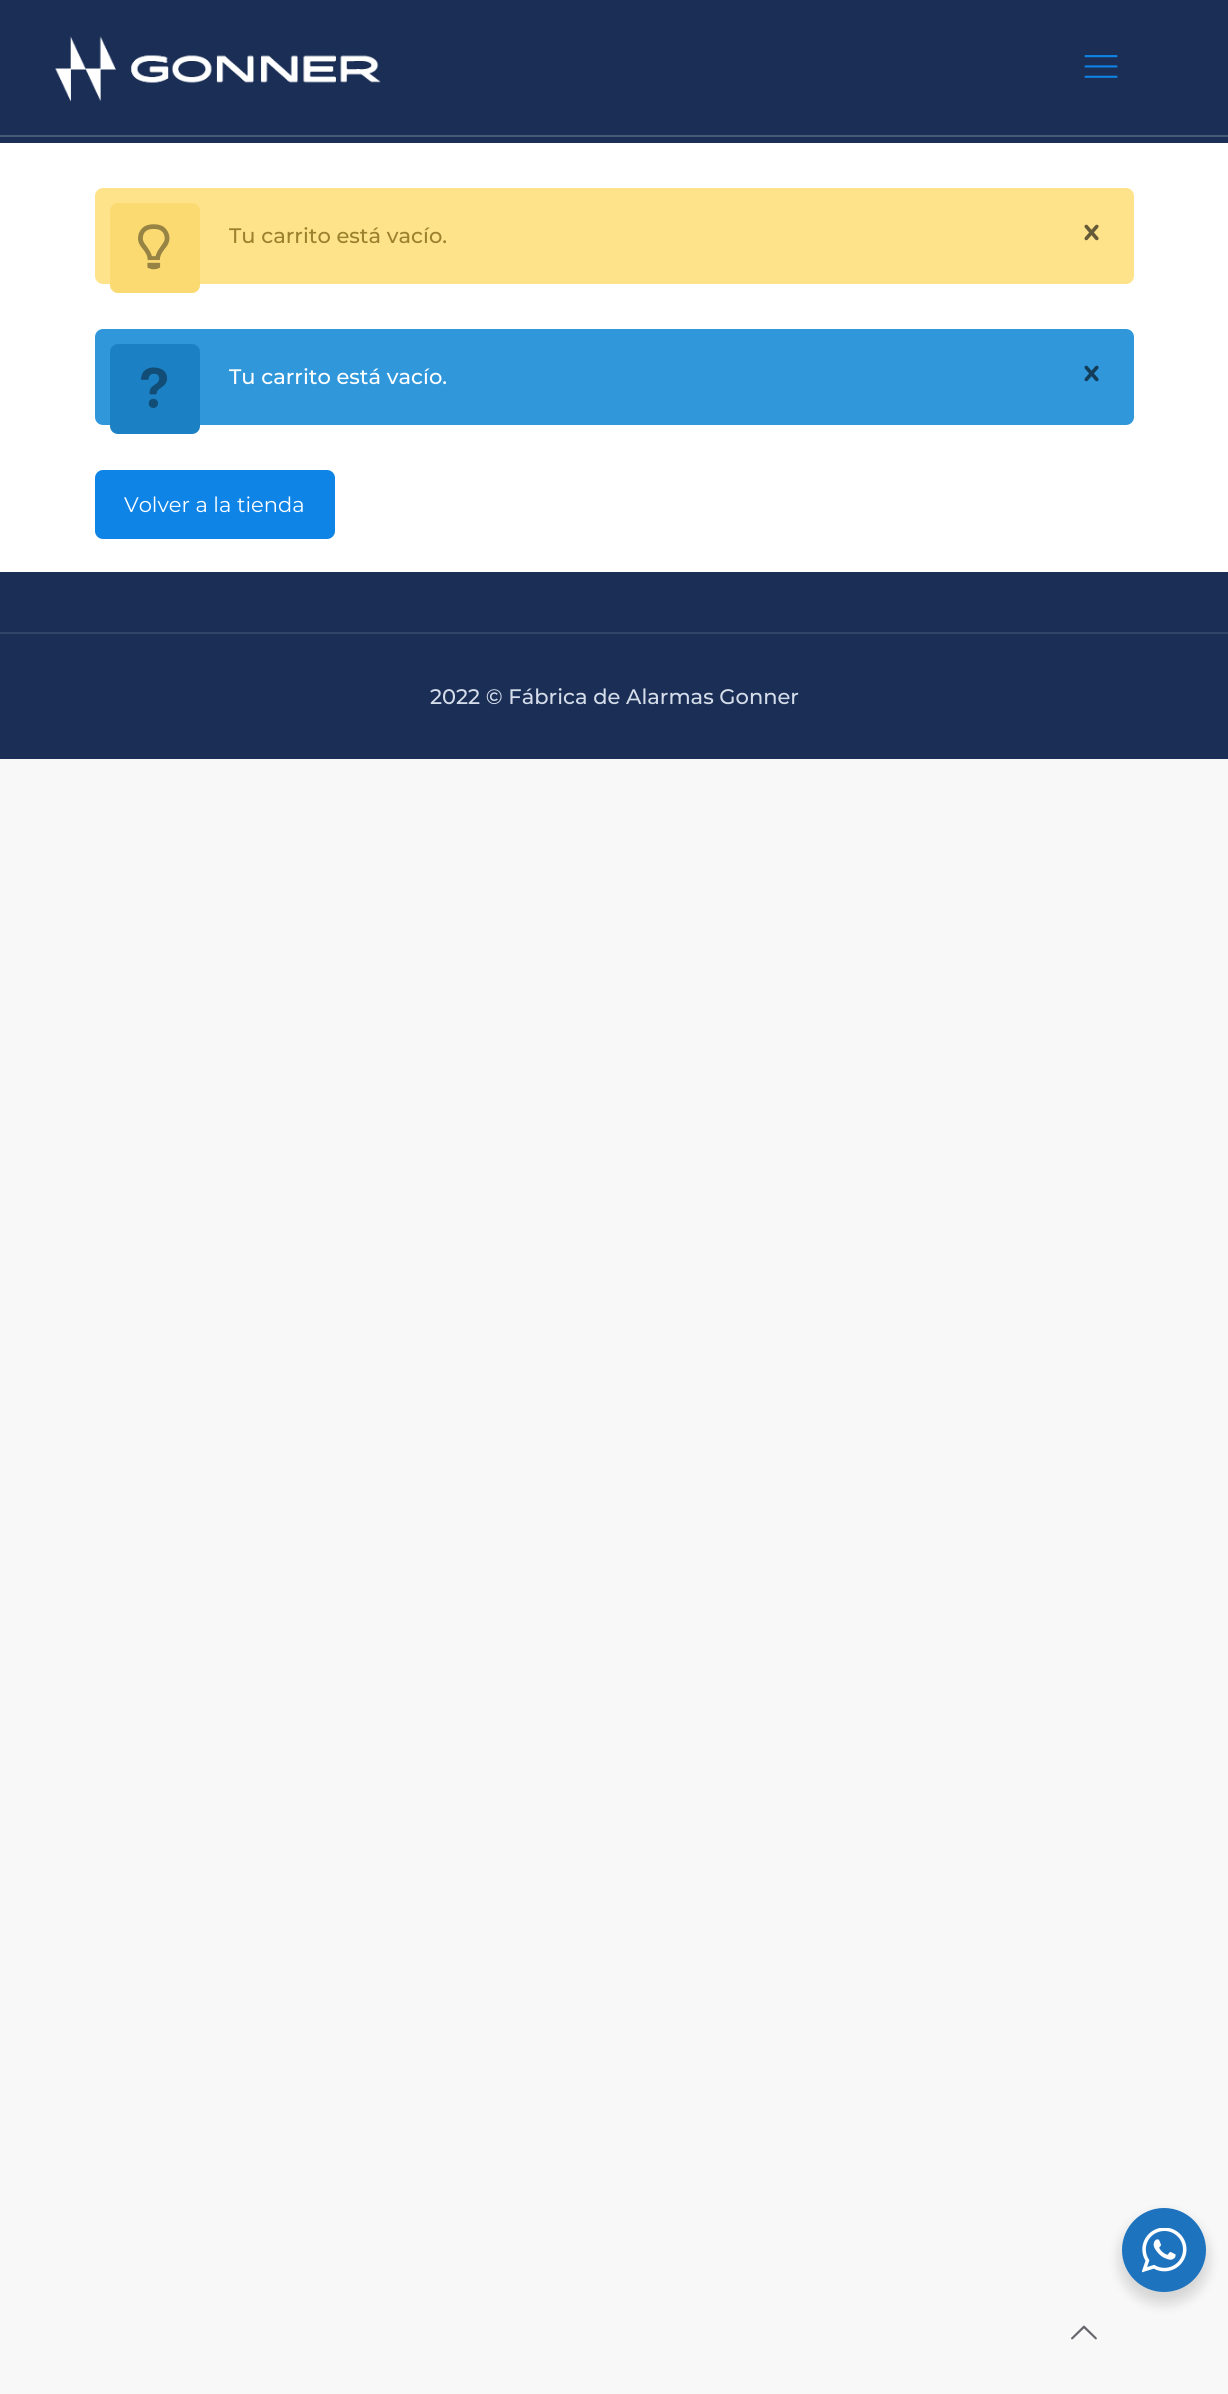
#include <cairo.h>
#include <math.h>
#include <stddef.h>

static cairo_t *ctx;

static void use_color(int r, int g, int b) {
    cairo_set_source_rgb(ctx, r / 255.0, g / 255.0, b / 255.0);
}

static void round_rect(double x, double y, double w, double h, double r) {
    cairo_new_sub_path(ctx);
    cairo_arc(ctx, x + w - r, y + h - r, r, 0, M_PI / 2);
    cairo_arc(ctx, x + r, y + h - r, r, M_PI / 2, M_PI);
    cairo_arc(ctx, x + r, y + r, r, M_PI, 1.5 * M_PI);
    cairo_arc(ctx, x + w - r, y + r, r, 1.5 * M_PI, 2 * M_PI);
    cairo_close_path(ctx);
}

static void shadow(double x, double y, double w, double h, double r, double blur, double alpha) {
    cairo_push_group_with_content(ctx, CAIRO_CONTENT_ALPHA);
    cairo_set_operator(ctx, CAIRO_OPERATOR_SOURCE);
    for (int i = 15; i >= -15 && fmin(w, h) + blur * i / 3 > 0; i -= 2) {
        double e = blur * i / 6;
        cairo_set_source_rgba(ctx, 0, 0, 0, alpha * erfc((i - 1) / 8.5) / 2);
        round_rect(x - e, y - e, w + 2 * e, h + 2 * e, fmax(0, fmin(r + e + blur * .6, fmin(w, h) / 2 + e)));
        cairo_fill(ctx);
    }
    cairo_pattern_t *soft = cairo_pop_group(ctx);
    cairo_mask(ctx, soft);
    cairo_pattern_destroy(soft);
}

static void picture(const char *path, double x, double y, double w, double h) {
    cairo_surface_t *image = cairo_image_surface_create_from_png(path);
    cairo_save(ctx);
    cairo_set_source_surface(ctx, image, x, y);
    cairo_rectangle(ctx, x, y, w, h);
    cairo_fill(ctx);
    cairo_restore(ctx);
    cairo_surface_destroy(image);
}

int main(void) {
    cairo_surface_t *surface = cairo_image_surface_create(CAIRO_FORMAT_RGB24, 1228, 2394);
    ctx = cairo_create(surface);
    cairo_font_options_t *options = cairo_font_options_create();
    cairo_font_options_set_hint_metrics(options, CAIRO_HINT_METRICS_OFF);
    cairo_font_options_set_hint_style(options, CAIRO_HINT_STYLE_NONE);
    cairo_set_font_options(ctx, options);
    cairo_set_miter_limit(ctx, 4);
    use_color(248, 248, 248);
    cairo_paint(ctx);
    use_color(27, 47, 86);
    cairo_rectangle(ctx, 0, 0, 1228, 143);
    cairo_fill(ctx);
    use_color(73, 89, 120);
    cairo_rectangle(ctx, 0, 135, 1228, 2);
    cairo_fill(ctx);
    picture("img1.png", 55, 36, 326, 66);
    picture("img2.png", 1084, 55, 34, 23);
    use_color(255, 255, 255);
    cairo_rectangle(ctx, 0, 143, 1228, 429);
    cairo_fill(ctx);
    use_color(255, 227, 139);
    round_rect(95, 188, 1039, 96, 8);
    cairo_fill(ctx);
    use_color(251, 218, 114);
    round_rect(110, 203, 90, 90, 8);
    cairo_fill(ctx);
    picture("img3.png", 138, 224, 32, 46);
    cairo_select_font_face(ctx, "Montserrat Medium", CAIRO_FONT_SLANT_NORMAL, CAIRO_FONT_WEIGHT_NORMAL);
    cairo_set_font_size(ctx, 21);
    use_color(155, 129, 46);
    cairo_move_to(ctx, 229, 243);
    cairo_show_text(ctx, "Tu carrito está vacío.");
    picture("img4.png", 1084, 224, 15, 17);
    use_color(48, 151, 219);
    round_rect(95, 329, 1039, 96, 8);
    cairo_fill(ctx);
    use_color(28, 129, 196);
    round_rect(110, 344, 90, 90, 8);
    cairo_fill(ctx);
    picture("img5.png", 141, 367, 27, 41);
    use_color(255, 255, 255);
    cairo_move_to(ctx, 229, 384);
    cairo_show_text(ctx, "Tu carrito está vacío.");
    picture("img6.png", 1084, 365, 15, 17);
    use_color(15, 132, 231);
    round_rect(95, 470, 240, 69, 8);
    cairo_fill(ctx);
    cairo_select_font_face(ctx, "Montserrat", CAIRO_FONT_SLANT_NORMAL, CAIRO_FONT_WEIGHT_NORMAL);
    use_color(255, 255, 255);
    cairo_move_to(ctx, 124, 512);
    cairo_show_text(ctx, "Volver a la tienda");
    use_color(27, 47, 86);
    cairo_rectangle(ctx, 0, 572, 1228, 187);
    cairo_fill(ctx);
    use_color(50, 68, 103);
    cairo_rectangle(ctx, 0, 632, 1228, 2);
    cairo_fill(ctx);
    cairo_select_font_face(ctx, "Montserrat Medium", CAIRO_FONT_SLANT_NORMAL, CAIRO_FONT_WEIGHT_NORMAL);
    use_color(213, 221, 234);
    cairo_move_to(ctx, 430, 704);
    cairo_show_text(ctx, "2022 © Fábrica de Alarmas Gonner");
    use_color(0, 0, 0);
    shadow(1119, 2214, 90, 90, 45, 6, 0.14);
    use_color(30, 115, 190);
    cairo_arc(ctx, 1164, 2250, 42, 0, 2 * M_PI);
    cairo_fill(ctx);
    picture("img7.png", 1142, 2228, 45, 45);
    picture("img8.png", 1071, 2325, 26, 15);
    cairo_surface_write_to_png(surface, "result.png");
    cairo_font_options_destroy(options);
    cairo_destroy(ctx);
    cairo_surface_destroy(surface);
    return 0;
}
